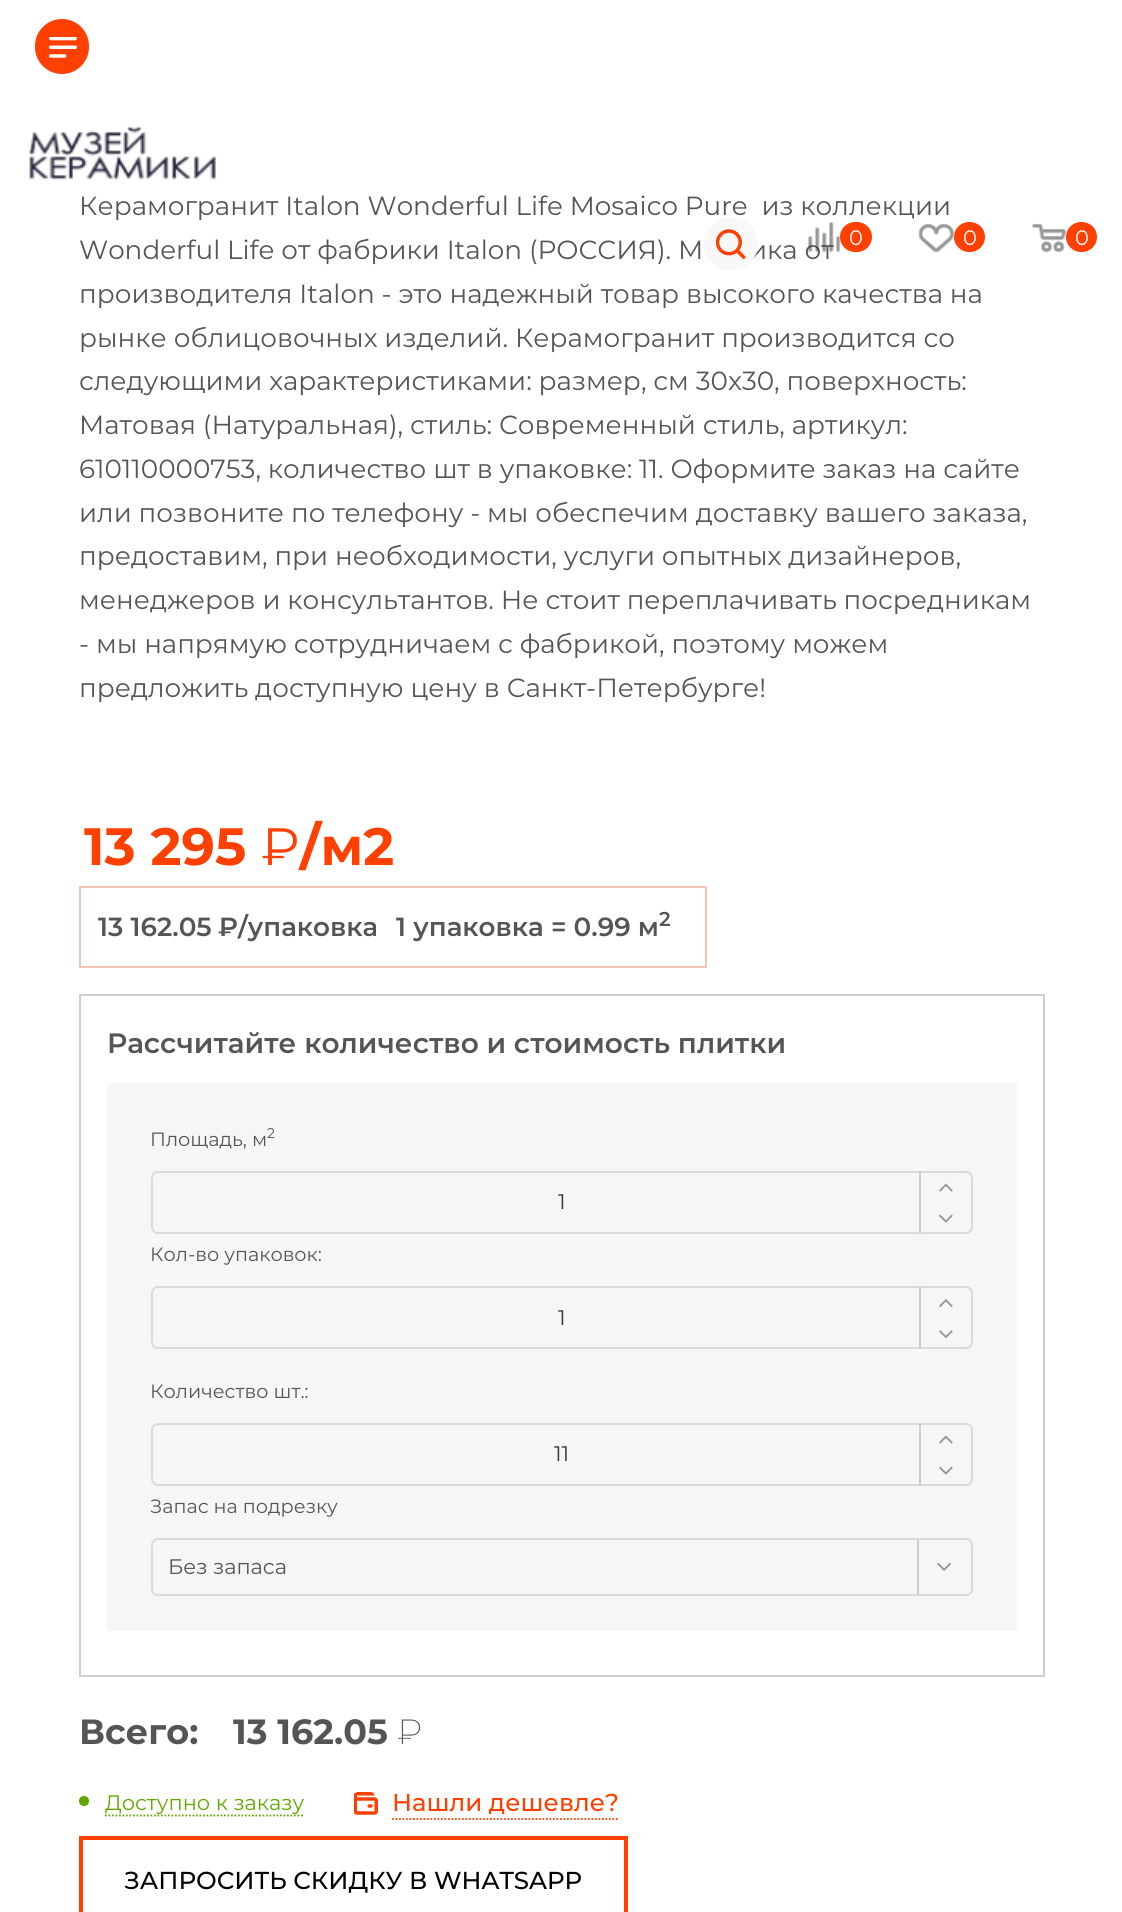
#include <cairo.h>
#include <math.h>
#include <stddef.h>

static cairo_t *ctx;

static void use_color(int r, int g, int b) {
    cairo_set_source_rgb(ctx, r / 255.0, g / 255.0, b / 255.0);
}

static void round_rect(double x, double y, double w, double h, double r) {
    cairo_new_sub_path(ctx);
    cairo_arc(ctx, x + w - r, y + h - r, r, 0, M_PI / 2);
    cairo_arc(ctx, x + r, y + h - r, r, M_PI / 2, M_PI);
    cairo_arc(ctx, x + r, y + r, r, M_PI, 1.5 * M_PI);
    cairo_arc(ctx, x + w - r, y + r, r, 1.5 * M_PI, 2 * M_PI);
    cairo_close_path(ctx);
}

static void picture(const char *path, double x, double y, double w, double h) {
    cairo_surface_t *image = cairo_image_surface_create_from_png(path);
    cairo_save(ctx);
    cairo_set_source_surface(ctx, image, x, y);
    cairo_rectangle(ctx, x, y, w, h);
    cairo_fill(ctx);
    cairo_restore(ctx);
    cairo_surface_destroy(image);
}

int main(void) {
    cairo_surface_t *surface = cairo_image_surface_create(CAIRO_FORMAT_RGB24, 1122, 1912);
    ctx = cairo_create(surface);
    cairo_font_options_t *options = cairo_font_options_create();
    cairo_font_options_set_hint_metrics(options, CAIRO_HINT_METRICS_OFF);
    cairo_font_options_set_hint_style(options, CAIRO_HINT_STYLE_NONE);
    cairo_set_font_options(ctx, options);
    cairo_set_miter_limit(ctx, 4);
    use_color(255, 255, 255);
    cairo_paint(ctx);
    cairo_select_font_face(ctx, "Montserrat", CAIRO_FONT_SLANT_NORMAL, CAIRO_FONT_WEIGHT_NORMAL);
    cairo_set_font_size(ctx, 26.25);
    use_color(85, 85, 85);
    cairo_move_to(ctx, 79, 215);
    cairo_show_text(ctx, "Керамогранит Italon Wonderful Life Mosaico Pure  из коллекции");
    cairo_move_to(ctx, 79, 259);
    cairo_show_text(ctx, "Wonderful Life от фабрики Italon (РОССИЯ). М");
    cairo_move_to(ctx, 749, 259);
    cairo_show_text(ctx, "ика от");
    cairo_move_to(ctx, 79, 303);
    cairo_show_text(ctx, "производителя Italon - это надежный товар высокого качества на");
    cairo_move_to(ctx, 79, 347);
    cairo_show_text(ctx, "рынке облицовочных изделий. Керамогранит производится со");
    cairo_move_to(ctx, 79, 390);
    cairo_show_text(ctx, "следующими характеристиками: размер, см 30x30, поверхность:");
    cairo_move_to(ctx, 79, 434);
    cairo_show_text(ctx, "Матовая (Натуральная), стиль: Современный стиль, артикул:");
    cairo_move_to(ctx, 79, 478);
    cairo_show_text(ctx, "610110000753, количество шт в упаковке: 11. Оформите заказ на сайте");
    cairo_move_to(ctx, 79, 522);
    cairo_show_text(ctx, "или позвоните по телефону - мы обеспечим доставку вашего заказа,");
    cairo_move_to(ctx, 79, 565);
    cairo_show_text(ctx, "предоставим, при необходимости, услуги опытных дизайнеров,");
    cairo_move_to(ctx, 79, 609);
    cairo_show_text(ctx, "менеджеров и консультантов. Не стоит переплачивать посредникам");
    cairo_move_to(ctx, 79, 653);
    cairo_show_text(ctx, "- мы напрямую сотрудничаем с фабрикой, поэтому можем");
    cairo_move_to(ctx, 79, 697);
    cairo_show_text(ctx, "предложить доступную цену в Санкт-Петербурге!");
    cairo_select_font_face(ctx, "Montserrat", CAIRO_FONT_SLANT_NORMAL, CAIRO_FONT_WEIGHT_BOLD);
    cairo_set_font_size(ctx, 52.5);
    use_color(255, 64, 0);
    cairo_move_to(ctx, 84, 865);
    cairo_show_text(ctx, "13 295");
    cairo_select_font_face(ctx, "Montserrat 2", CAIRO_FONT_SLANT_NORMAL, CAIRO_FONT_WEIGHT_NORMAL);
    cairo_move_to(ctx, 261, 865);
    cairo_show_text(ctx, "₽");
    cairo_select_font_face(ctx, "Montserrat", CAIRO_FONT_SLANT_NORMAL, CAIRO_FONT_WEIGHT_BOLD);
    cairo_move_to(ctx, 300, 865);
    cairo_show_text(ctx, "/м2");
    cairo_rectangle(ctx, 80, 887, 626, 80);
    use_color(243, 196, 183);
    cairo_stroke(ctx);
    cairo_select_font_face(ctx, "Montserrat SemiBold", CAIRO_FONT_SLANT_NORMAL, CAIRO_FONT_WEIGHT_NORMAL);
    cairo_set_font_size(ctx, 26.25);
    use_color(85, 85, 85);
    cairo_move_to(ctx, 98, 936);
    cairo_show_text(ctx, "13 162.05");
    cairo_select_font_face(ctx, "Montserrat 2 SemiBold", CAIRO_FONT_SLANT_NORMAL, CAIRO_FONT_WEIGHT_NORMAL);
    cairo_move_to(ctx, 218, 936);
    cairo_show_text(ctx, "₽");
    cairo_select_font_face(ctx, "Montserrat SemiBold", CAIRO_FONT_SLANT_NORMAL, CAIRO_FONT_WEIGHT_NORMAL);
    cairo_move_to(ctx, 238, 936);
    cairo_show_text(ctx, "/упаковка");
    cairo_move_to(ctx, 396, 936);
    cairo_show_text(ctx, "1 упаковка = 0.99 м");
    cairo_set_font_size(ctx, 20);
    cairo_move_to(ctx, 659, 926);
    cairo_show_text(ctx, "2");
    cairo_rectangle(ctx, 80, 995, 964, 681);
    use_color(206, 206, 206);
    cairo_stroke(ctx);
    cairo_set_font_size(ctx, 28);
    use_color(85, 85, 85);
    cairo_move_to(ctx, 107, 1053);
    cairo_show_text(ctx, "Рассчитайте количество и стоимость плитки");
    use_color(246, 246, 246);
    cairo_rectangle(ctx, 107, 1083, 910, 548);
    cairo_fill(ctx);
    cairo_select_font_face(ctx, "Montserrat", CAIRO_FONT_SLANT_NORMAL, CAIRO_FONT_WEIGHT_NORMAL);
    cairo_set_font_size(ctx, 19.25);
    use_color(85, 85, 85);
    cairo_move_to(ctx, 150, 1146);
    cairo_show_text(ctx, "Площадь, м");
    cairo_set_font_size(ctx, 14);
    cairo_move_to(ctx, 267, 1138);
    cairo_show_text(ctx, "2");
    round_rect(152, 1172, 820, 61, 6);
    use_color(218, 218, 218);
    cairo_stroke(ctx);
    cairo_set_font_size(ctx, 21);
    use_color(51, 51, 51);
    cairo_move_to(ctx, 558, 1209);
    cairo_show_text(ctx, "1");
    use_color(205, 205, 205);
    cairo_rectangle(ctx, 919, 1171, 2, 31);
    cairo_fill(ctx);
    picture("img1.png", 939, 1183, 14, 9);
    use_color(204, 204, 204);
    cairo_rectangle(ctx, 919, 1202, 2, 32);
    cairo_fill(ctx);
    picture("img2.png", 939, 1214, 14, 9);
    cairo_set_font_size(ctx, 19.25);
    use_color(85, 85, 85);
    cairo_move_to(ctx, 150, 1261);
    cairo_show_text(ctx, "Кол-во упаковок:");
    round_rect(152, 1287, 820, 61, 6);
    use_color(218, 218, 218);
    cairo_stroke(ctx);
    cairo_set_font_size(ctx, 21);
    use_color(51, 51, 51);
    cairo_move_to(ctx, 558, 1325);
    cairo_show_text(ctx, "1");
    use_color(205, 205, 205);
    cairo_rectangle(ctx, 919, 1286, 2, 32);
    cairo_fill(ctx);
    picture("img3.png", 939, 1299, 14, 8);
    use_color(204, 204, 204);
    cairo_rectangle(ctx, 919, 1318, 2, 31);
    cairo_fill(ctx);
    picture("img4.png", 939, 1330, 14, 8);
    cairo_set_font_size(ctx, 19.25);
    use_color(85, 85, 85);
    cairo_move_to(ctx, 150, 1398);
    cairo_show_text(ctx, "Количество шт.:");
    round_rect(152, 1424, 820, 61, 6);
    use_color(218, 218, 218);
    cairo_stroke(ctx);
    cairo_set_font_size(ctx, 21);
    use_color(51, 51, 51);
    cairo_move_to(ctx, 554, 1461);
    cairo_show_text(ctx, "11");
    use_color(205, 205, 205);
    cairo_rectangle(ctx, 919, 1423, 2, 31);
    cairo_fill(ctx);
    picture("img1.png", 939, 1435, 14, 9);
    use_color(204, 204, 204);
    cairo_rectangle(ctx, 919, 1454, 2, 32);
    cairo_fill(ctx);
    picture("img2.png", 939, 1466, 14, 9);
    cairo_set_font_size(ctx, 19.25);
    use_color(85, 85, 85);
    cairo_move_to(ctx, 150, 1513);
    cairo_show_text(ctx, "Запас на подрезку");
    round_rect(152, 1539, 820, 56, 6);
    use_color(218, 218, 218);
    cairo_stroke(ctx);
    cairo_set_font_size(ctx, 21);
    use_color(85, 85, 85);
    cairo_move_to(ctx, 168, 1574);
    cairo_show_text(ctx, "Без запаса");
    use_color(204, 204, 204);
    cairo_rectangle(ctx, 917, 1540, 2, 54);
    cairo_fill(ctx);
    picture("img5.png", 937, 1563, 14, 8);
    cairo_select_font_face(ctx, "Montserrat", CAIRO_FONT_SLANT_NORMAL, CAIRO_FONT_WEIGHT_BOLD);
    cairo_set_font_size(ctx, 35);
    use_color(85, 85, 85);
    cairo_move_to(ctx, 79, 1744);
    cairo_show_text(ctx, "Всего:");
    cairo_move_to(ctx, 233, 1744);
    cairo_show_text(ctx, "13 162.05");
    cairo_select_font_face(ctx, "Montserrat ExtraLight", CAIRO_FONT_SLANT_NORMAL, CAIRO_FONT_WEIGHT_NORMAL);
    cairo_move_to(ctx, 397, 1744);
    cairo_show_text(ctx, "₽");
    use_color(95, 168, 0);
    cairo_new_path(ctx);
    cairo_arc(ctx, 84, 1801, 5, 0, 2 * M_PI);
    cairo_fill(ctx);
    cairo_new_path(ctx);
    cairo_move_to(ctx, 105, 1815.5);
    cairo_line_to(ctx, 304.5, 1815.5);
    cairo_set_line_width(ctx, 1.8);
    cairo_set_dash(ctx, (double[]){1.75, 1.75}, 2, 0);
    cairo_stroke(ctx);
    cairo_select_font_face(ctx, "Montserrat", CAIRO_FONT_SLANT_NORMAL, CAIRO_FONT_WEIGHT_NORMAL);
    cairo_set_font_size(ctx, 21);
    cairo_move_to(ctx, 105, 1810);
    cairo_show_text(ctx, "Доступно к заказу");
    picture("img6.png", 354, 1792, 24, 23);
    cairo_select_font_face(ctx, "Montserrat Medium", CAIRO_FONT_SLANT_NORMAL, CAIRO_FONT_WEIGHT_NORMAL);
    cairo_set_font_size(ctx, 24.5);
    use_color(255, 64, 0);
    cairo_move_to(ctx, 392, 1811);
    cairo_show_text(ctx, "Нашли дешевле?");
    cairo_new_path(ctx);
    cairo_move_to(ctx, 392, 1819);
    cairo_line_to(ctx, 619.5, 1819);
    cairo_stroke(ctx);
    cairo_rectangle(ctx, 81, 1838, 545, 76);
    cairo_set_line_width(ctx, 4);
    cairo_set_dash(ctx, NULL, 0, 0);
    cairo_stroke(ctx);
    use_color(0, 0, 0);
    cairo_move_to(ctx, 124, 1889);
    cairo_show_text(ctx, "ЗАПРОСИТЬ СКИДКУ В WHATSAPP");
    use_color(255, 64, 1);
    round_rect(35, 19, 54, 55, 27);
    cairo_fill(ctx);
    picture("img7.png", 49, 37, 28, 21);
    picture("img8.png", 29, 127, 187, 53);
    use_color(248, 248, 248);
    cairo_arc(ctx, 731, 244, 27, 0, 2 * M_PI);
    cairo_fill(ctx);
    picture("img9.png", 716, 229, 30, 30);
    picture("img10.png", 808, 222, 33, 31);
    use_color(255, 64, 0);
    round_rect(840, 222, 32, 30, 15);
    cairo_fill(ctx);
    cairo_select_font_face(ctx, "Montserrat", CAIRO_FONT_SLANT_NORMAL, CAIRO_FONT_WEIGHT_NORMAL);
    cairo_set_font_size(ctx, 21);
    use_color(255, 255, 255);
    cairo_move_to(ctx, 849, 245);
    cairo_show_text(ctx, "0");
    picture("img11.png", 918, 223, 36, 30);
    use_color(255, 64, 0);
    round_rect(954, 222, 31, 30, 15);
    cairo_fill(ctx);
    use_color(255, 255, 255);
    cairo_move_to(ctx, 963, 245);
    cairo_show_text(ctx, "0");
    picture("img12.png", 1032, 223, 34, 30);
    use_color(255, 64, 0);
    round_rect(1066, 222, 31, 30, 15);
    cairo_fill(ctx);
    use_color(255, 255, 255);
    cairo_move_to(ctx, 1075, 245);
    cairo_show_text(ctx, "0");
    cairo_surface_write_to_png(surface, "result.png");
    cairo_font_options_destroy(options);
    cairo_destroy(ctx);
    cairo_surface_destroy(surface);
    return 0;
}
